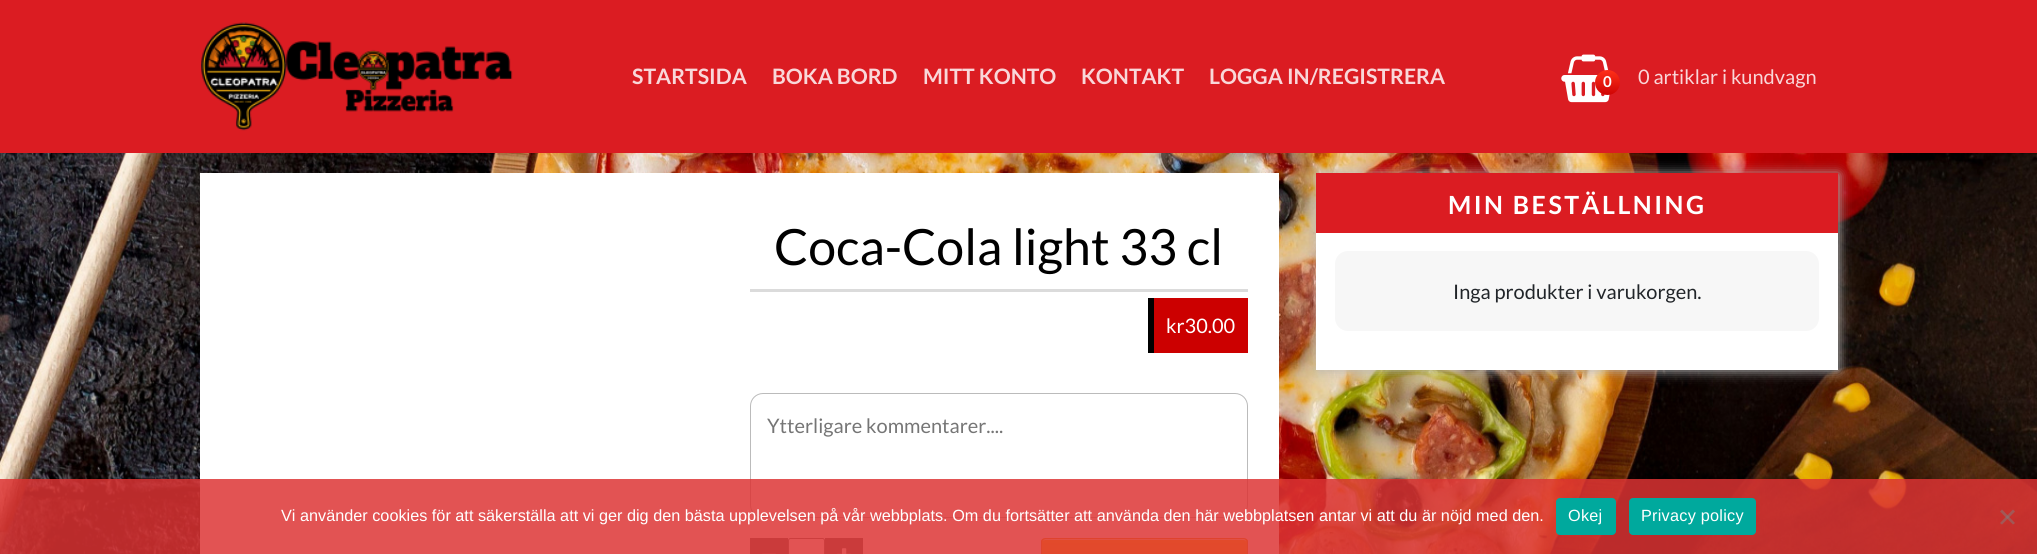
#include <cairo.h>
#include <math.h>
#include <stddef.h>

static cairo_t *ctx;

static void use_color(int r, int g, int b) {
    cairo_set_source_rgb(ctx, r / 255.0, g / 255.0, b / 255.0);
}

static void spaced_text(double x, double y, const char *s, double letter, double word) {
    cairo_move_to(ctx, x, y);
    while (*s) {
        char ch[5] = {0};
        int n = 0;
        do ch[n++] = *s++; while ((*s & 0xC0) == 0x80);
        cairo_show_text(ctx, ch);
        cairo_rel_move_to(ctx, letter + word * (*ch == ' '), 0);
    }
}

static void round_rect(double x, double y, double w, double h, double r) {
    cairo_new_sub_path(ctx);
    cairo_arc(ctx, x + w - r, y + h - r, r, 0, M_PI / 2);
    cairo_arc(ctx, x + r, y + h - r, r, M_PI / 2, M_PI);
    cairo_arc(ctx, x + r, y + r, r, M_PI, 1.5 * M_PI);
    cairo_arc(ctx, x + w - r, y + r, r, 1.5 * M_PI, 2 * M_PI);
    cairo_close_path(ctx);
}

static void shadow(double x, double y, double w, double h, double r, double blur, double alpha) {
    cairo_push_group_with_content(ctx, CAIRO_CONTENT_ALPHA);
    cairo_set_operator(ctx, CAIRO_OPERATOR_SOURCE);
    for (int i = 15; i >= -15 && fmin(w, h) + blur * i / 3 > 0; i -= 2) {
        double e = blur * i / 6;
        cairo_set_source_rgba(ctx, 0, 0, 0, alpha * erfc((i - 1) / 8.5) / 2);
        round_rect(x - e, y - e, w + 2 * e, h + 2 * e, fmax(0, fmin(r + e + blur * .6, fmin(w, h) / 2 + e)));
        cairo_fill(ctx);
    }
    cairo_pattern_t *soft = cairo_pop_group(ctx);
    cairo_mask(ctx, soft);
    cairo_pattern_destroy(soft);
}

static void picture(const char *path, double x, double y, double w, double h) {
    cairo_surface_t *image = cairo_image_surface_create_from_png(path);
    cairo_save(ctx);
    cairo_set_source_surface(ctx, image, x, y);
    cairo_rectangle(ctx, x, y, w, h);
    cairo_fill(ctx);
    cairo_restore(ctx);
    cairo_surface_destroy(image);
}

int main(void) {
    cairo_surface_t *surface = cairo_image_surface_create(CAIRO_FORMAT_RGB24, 2037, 554);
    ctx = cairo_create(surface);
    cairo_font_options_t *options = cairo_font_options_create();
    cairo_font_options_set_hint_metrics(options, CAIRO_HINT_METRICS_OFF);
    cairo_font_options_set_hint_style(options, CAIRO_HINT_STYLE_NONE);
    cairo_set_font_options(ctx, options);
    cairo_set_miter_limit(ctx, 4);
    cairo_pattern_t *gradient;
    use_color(255, 255, 255);
    cairo_paint(ctx);
    picture("img1.png", 0, 153, 2037, 401);
    use_color(219, 28, 34);
    cairo_rectangle(ctx, 0, 0, 2037, 153);
    cairo_fill(ctx);
    picture("img2.png", 201, 22, 312, 109);
    cairo_select_font_face(ctx, "Lato", CAIRO_FONT_SLANT_NORMAL, CAIRO_FONT_WEIGHT_BOLD);
    cairo_set_font_size(ctx, 21.25);
    use_color(249, 215, 217);
    cairo_move_to(ctx, 632, 84);
    cairo_show_text(ctx, "STARTSIDA");
    cairo_move_to(ctx, 772, 84);
    cairo_show_text(ctx, "BOKA BORD");
    cairo_move_to(ctx, 923, 84);
    cairo_show_text(ctx, "MITT KONTO");
    cairo_move_to(ctx, 1081, 84);
    cairo_show_text(ctx, "KONTAKT");
    cairo_move_to(ctx, 1209, 84);
    cairo_show_text(ctx, "LOGGA IN/REGISTRERA");
    picture("img3.png", 1561, 54, 49, 49);
    gradient = cairo_pattern_create_linear(1608, 70, 1608, 95);
    cairo_pattern_add_color_stop_rgba(gradient, 0, 1, 0.188, 0.098, 1);
    cairo_pattern_add_color_stop_rgba(gradient, 1, 0.812, 0.016, 0.016, 1);
    cairo_set_source(ctx, gradient);
    cairo_pattern_destroy(gradient);
    cairo_arc(ctx, 1607.5, 82.5, 12.5, 0, 2 * M_PI);
    cairo_fill(ctx);
    cairo_set_font_size(ctx, 15);
    use_color(255, 255, 255);
    cairo_move_to(ctx, 1603, 87);
    cairo_show_text(ctx, "0");
    cairo_select_font_face(ctx, "Lato", CAIRO_FONT_SLANT_NORMAL, CAIRO_FONT_WEIGHT_NORMAL);
    cairo_set_font_size(ctx, 20);
    use_color(249, 215, 217);
    cairo_move_to(ctx, 1638, 84);
    cairo_show_text(ctx, "0 artiklar i kundvagn");
    use_color(255, 255, 255);
    cairo_rectangle(ctx, 200, 173, 1079, 381);
    cairo_fill(ctx);
    use_color(219, 219, 219);
    cairo_rectangle(ctx, 750, 289, 498, 3);
    cairo_fill(ctx);
    cairo_set_font_size(ctx, 50);
    use_color(0, 0, 0);
    cairo_move_to(ctx, 774, 265);
    cairo_show_text(ctx, "Coca-Cola light 33 cl");
    use_color(204, 0, 0);
    cairo_rectangle(ctx, 1154, 298, 94, 55);
    cairo_fill(ctx);
    use_color(0, 0, 0);
    cairo_rectangle(ctx, 1148, 298, 6, 55);
    cairo_fill(ctx);
    cairo_set_font_size(ctx, 20);
    use_color(255, 255, 255);
    cairo_move_to(ctx, 1166, 333);
    cairo_show_text(ctx, "kr30.00");
    round_rect(750.5, 393.5, 497, 124, 12.5);
    use_color(187, 187, 187);
    cairo_set_line_width(ctx, 1);
    cairo_stroke(ctx);
    use_color(117, 117, 117);
    cairo_move_to(ctx, 767, 433);
    cairo_show_text(ctx, "Ytterligare kommentarer....");
    use_color(105, 105, 105);
    cairo_rectangle(ctx, 750, 538, 38, 16);
    cairo_fill(ctx);
    picture("img4.png", 762, 553, 14, 1);
    round_rect(788.5, 538.5, 36, 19, 2);
    use_color(118, 118, 118);
    cairo_stroke(ctx);
    use_color(105, 105, 105);
    cairo_rectangle(ctx, 825, 538, 38, 16);
    cairo_fill(ctx);
    picture("img5.png", 837, 548, 14, 6);
    cairo_save(ctx);
    round_rect(1041, 538, 207, 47, 4);
    cairo_clip(ctx);
    gradient = cairo_pattern_create_linear(1144, 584, 1144, 539);
    cairo_pattern_add_color_stop_rgba(gradient, 0, 0.98, 0.635, 0.106, 1);
    cairo_pattern_add_color_stop_rgba(gradient, 1, 1, 0.776, 0, 1);
    cairo_set_source(ctx, gradient);
    cairo_pattern_destroy(gradient);
    cairo_rectangle(ctx, 1041, 539, 207, 15);
    cairo_fill(ctx);
    cairo_restore(ctx);
    use_color(255, 232, 153);
    cairo_new_path(ctx);
    cairo_move_to(ctx, 1045, 540);
    cairo_line_to(ctx, 1244, 540);
    cairo_line_to(ctx, 1246, 541);
    cairo_line_to(ctx, 1246, 542);
    cairo_curve_to(ctx, 1246, 540, 1245, 539, 1244, 539);
    cairo_line_to(ctx, 1046, 539);
    cairo_curve_to(ctx, 1044, 539, 1044, 540, 1043, 541);
    cairo_close_path(ctx);
    cairo_fill(ctx);
    round_rect(1041.5, 538.5, 206, 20, 3.5);
    use_color(236, 154, 16);
    cairo_stroke(ctx);
    use_color(187, 187, 187);
    shadow(1318, 174, 521, 197, 0, 6, 1);
    use_color(219, 28, 34);
    cairo_rectangle(ctx, 1316, 173, 522, 60);
    cairo_fill(ctx);
    cairo_select_font_face(ctx, "Lato", CAIRO_FONT_SLANT_NORMAL, CAIRO_FONT_WEIGHT_BOLD);
    cairo_set_font_size(ctx, 25);
    use_color(255, 255, 255);
    spaced_text(1448, 214, "MIN BESTÄLLNING", 2.5, 0);
    cairo_rectangle(ctx, 1316, 233, 522, 137);
    cairo_fill(ctx);
    use_color(247, 247, 247);
    round_rect(1335, 251, 484, 80, 13);
    cairo_fill(ctx);
    cairo_select_font_face(ctx, "Lato", CAIRO_FONT_SLANT_NORMAL, CAIRO_FONT_WEIGHT_NORMAL);
    cairo_set_font_size(ctx, 20);
    use_color(33, 37, 41);
    cairo_move_to(ctx, 1453, 299);
    cairo_show_text(ctx, "Inga produkter i varukorgen.");
    cairo_set_source_rgba(ctx, 0.867, 0.2, 0.2, 0.84);
    cairo_rectangle(ctx, 0, 479, 2037, 75);
    cairo_fill(ctx);
    cairo_select_font_face(ctx, "Liberation Sans", CAIRO_FONT_SLANT_NORMAL, CAIRO_FONT_WEIGHT_NORMAL);
    cairo_set_font_size(ctx, 16.25);
    use_color(255, 255, 255);
    cairo_move_to(ctx, 281, 521);
    cairo_show_text(ctx, "Vi använder cookies för att säkerställa att vi ger dig den bästa upplevelsen på vår webbplats. Om du fortsätter att använda den här webbplatsen antar vi att du är nöjd med den.");
    use_color(0, 169, 157);
    round_rect(1556, 498, 60, 37, 4);
    cairo_fill(ctx);
    use_color(255, 255, 255);
    spaced_text(1568, 521, "Okej", 0.25, 0);
    use_color(0, 169, 157);
    round_rect(1629, 498, 127, 37, 4);
    cairo_fill(ctx);
    use_color(255, 255, 255);
    spaced_text(1641, 521, "Privacy policy", 0.25, 0);
    cairo_set_source_rgba(ctx, 0.502, 0.502, 0.502, 0.5);
    cairo_new_path(ctx);
    cairo_move_to(ctx, 2013, 509.5);
    cairo_line_to(ctx, 2015, 511.5);
    cairo_line_to(ctx, 2002, 524.5);
    cairo_line_to(ctx, 2000, 523);
    cairo_close_path(ctx);
    cairo_fill(ctx);
    cairo_new_path(ctx);
    cairo_move_to(ctx, 2000, 511.5);
    cairo_line_to(ctx, 2002, 509.5);
    cairo_line_to(ctx, 2015, 523);
    cairo_line_to(ctx, 2013, 524.5);
    cairo_close_path(ctx);
    cairo_fill(ctx);
    cairo_surface_write_to_png(surface, "result.png");
    cairo_font_options_destroy(options);
    cairo_destroy(ctx);
    cairo_surface_destroy(surface);
    return 0;
}
